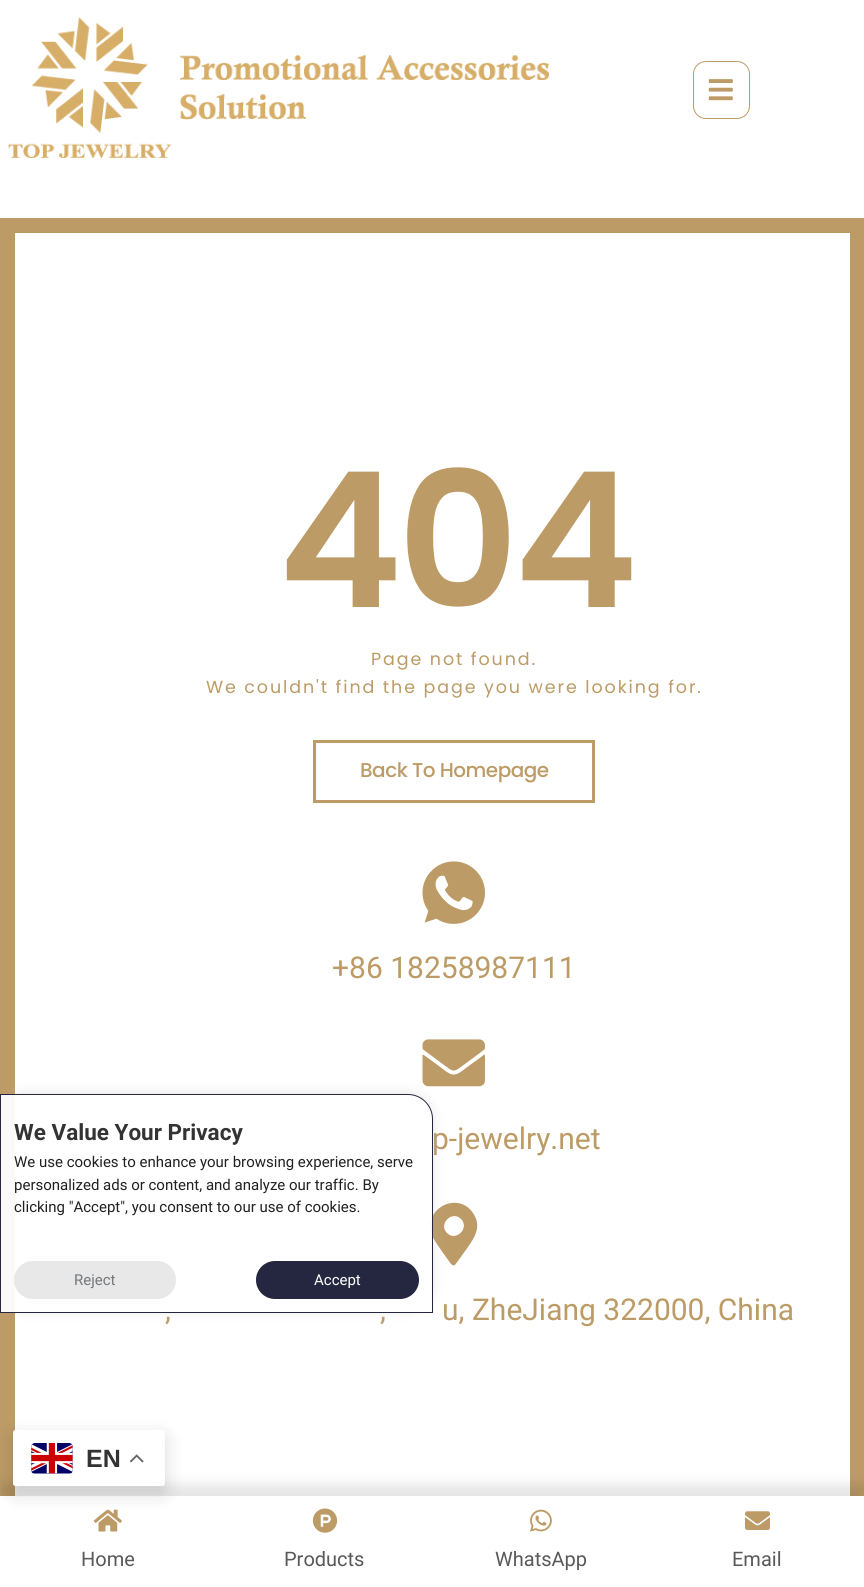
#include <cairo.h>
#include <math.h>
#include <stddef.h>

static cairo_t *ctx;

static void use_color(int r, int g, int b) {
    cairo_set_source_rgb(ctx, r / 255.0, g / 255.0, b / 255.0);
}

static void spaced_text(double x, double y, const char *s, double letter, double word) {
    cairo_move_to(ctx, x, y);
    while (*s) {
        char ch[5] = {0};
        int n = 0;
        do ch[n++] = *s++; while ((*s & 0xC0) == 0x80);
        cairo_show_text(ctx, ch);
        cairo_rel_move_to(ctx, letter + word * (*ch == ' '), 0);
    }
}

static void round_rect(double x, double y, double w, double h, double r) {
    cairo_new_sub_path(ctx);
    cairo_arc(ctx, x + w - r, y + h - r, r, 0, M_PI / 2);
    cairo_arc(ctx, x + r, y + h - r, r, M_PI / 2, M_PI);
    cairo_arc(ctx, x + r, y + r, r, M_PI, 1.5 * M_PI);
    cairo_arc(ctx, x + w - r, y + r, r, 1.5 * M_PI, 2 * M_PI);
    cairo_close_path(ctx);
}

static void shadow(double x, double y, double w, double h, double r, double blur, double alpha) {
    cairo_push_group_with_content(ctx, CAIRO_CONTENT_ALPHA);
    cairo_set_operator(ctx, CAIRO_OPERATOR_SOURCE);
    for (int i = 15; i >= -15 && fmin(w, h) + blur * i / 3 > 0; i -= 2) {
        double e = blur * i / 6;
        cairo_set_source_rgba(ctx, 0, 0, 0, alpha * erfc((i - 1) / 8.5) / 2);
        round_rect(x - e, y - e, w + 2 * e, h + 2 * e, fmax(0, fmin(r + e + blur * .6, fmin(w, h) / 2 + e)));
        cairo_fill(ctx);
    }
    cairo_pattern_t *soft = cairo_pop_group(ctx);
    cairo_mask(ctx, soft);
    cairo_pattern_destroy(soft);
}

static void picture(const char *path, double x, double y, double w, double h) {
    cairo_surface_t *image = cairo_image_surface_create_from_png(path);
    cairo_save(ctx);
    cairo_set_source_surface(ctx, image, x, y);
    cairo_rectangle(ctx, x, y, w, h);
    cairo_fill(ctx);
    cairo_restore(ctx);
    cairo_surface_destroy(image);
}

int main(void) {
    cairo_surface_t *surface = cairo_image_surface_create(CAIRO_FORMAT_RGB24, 864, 1587);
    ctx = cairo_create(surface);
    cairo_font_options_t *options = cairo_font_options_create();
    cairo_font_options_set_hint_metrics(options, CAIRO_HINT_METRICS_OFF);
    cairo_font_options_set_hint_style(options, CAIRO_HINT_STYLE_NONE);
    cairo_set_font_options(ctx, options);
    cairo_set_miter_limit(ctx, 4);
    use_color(255, 255, 255);
    cairo_paint(ctx);
    picture("img1.png", 8, 17, 541, 141);
    round_rect(693.5, 61.5, 56, 57, 12.5);
    use_color(188, 155, 102);
    cairo_set_line_width(ctx, 1);
    cairo_stroke(ctx);
    picture("img2.png", 708, 79, 25, 22);
    cairo_rectangle(ctx, 7.5, 225.5, 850, 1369);
    cairo_set_line_width(ctx, 15);
    cairo_stroke(ctx);
    cairo_select_font_face(ctx, "Poppins SemiBold", CAIRO_FONT_SLANT_NORMAL, CAIRO_FONT_WEIGHT_NORMAL);
    cairo_set_font_size(ctx, 188);
    spaced_text(278, 607, "404", -5, 0);
    cairo_select_font_face(ctx, "Poppins", CAIRO_FONT_SLANT_NORMAL, CAIRO_FONT_WEIGHT_NORMAL);
    cairo_set_font_size(ctx, 17.5);
    spaced_text(371, 665, "Page not found.", 1.9, 0);
    spaced_text(206, 693, "We couldn't find the page you were looking for.", 1.9, 0);
    cairo_rectangle(ctx, 314.5, 741.5, 279, 60);
    cairo_set_line_width(ctx, 3);
    cairo_stroke(ctx);
    cairo_select_font_face(ctx, "Poppins Medium", CAIRO_FONT_SLANT_NORMAL, CAIRO_FONT_WEIGHT_NORMAL);
    cairo_set_font_size(ctx, 20);
    spaced_text(360, 777, "Back To Homepage", -0.5, 0);
    picture("img3.png", 422, 861, 63, 63);
    cairo_select_font_face(ctx, "Roboto", CAIRO_FONT_SLANT_NORMAL, CAIRO_FONT_WEIGHT_NORMAL);
    cairo_set_font_size(ctx, 30);
    cairo_move_to(ctx, 332, 978);
    cairo_show_text(ctx, "+86 18258987111");
    picture("img4.png", 422, 1039, 63, 48);
    cairo_move_to(ctx, 432, 1149);
    cairo_show_text(ctx, "p-jewelry.net");
    cairo_new_path(ctx);
    cairo_move_to(ctx, 451, 1264);
    cairo_line_to(ctx, 441, 1250);
    cairo_curve_to(ctx, 437, 1244, 432, 1238, 431, 1231);
    cairo_curve_to(ctx, 426, 1206, 459, 1192, 473, 1213);
    cairo_curve_to(ctx, 484, 1229, 471, 1242, 463, 1254);
    cairo_line_to(ctx, 455, 1265);
    cairo_curve_to(ctx, 454, 1266, 452, 1265, 451, 1264);
    cairo_close_path(ctx);
    cairo_move_to(ctx, 447, 1233);
    cairo_curve_to(ctx, 456, 1242, 470, 1228, 461, 1219);
    cairo_curve_to(ctx, 452, 1210, 438, 1224, 447, 1233);
    cairo_close_path(ctx);
    cairo_fill(ctx);
    cairo_move_to(ctx, 165, 1320);
    cairo_show_text(ctx, ",");
    cairo_move_to(ctx, 380, 1320);
    cairo_show_text(ctx, ",");
    cairo_move_to(ctx, 442, 1320);
    cairo_show_text(ctx, "u, ZheJiang 322000, China");
    cairo_save(ctx);
    cairo_set_fill_rule(ctx, CAIRO_FILL_RULE_EVEN_ODD);
    cairo_new_path(ctx);
    cairo_move_to(ctx, 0, 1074);
    cairo_line_to(ctx, 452, 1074);
    cairo_line_to(ctx, 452, 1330);
    cairo_line_to(ctx, 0, 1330);
    cairo_close_path(ctx);
    cairo_move_to(ctx, 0, 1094);
    cairo_line_to(ctx, 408, 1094);
    cairo_curve_to(ctx, 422, 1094, 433, 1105, 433, 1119);
    cairo_line_to(ctx, 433, 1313);
    cairo_line_to(ctx, 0, 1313);
    cairo_close_path(ctx);
    cairo_clip(ctx);
    use_color(172, 171, 171);
    shadow(0, 1093, 433, 218, 25, 6, 0.3);
    cairo_restore(ctx);
    cairo_set_source_rgba(ctx, 1, 1, 1, 0.95);
    cairo_new_path(ctx);
    cairo_move_to(ctx, 0.5, 1094.5);
    cairo_line_to(ctx, 408, 1094.5);
    cairo_curve_to(ctx, 421.5, 1094.5, 432.5, 1105.5, 432.5, 1119);
    cairo_line_to(ctx, 432.5, 1312.5);
    cairo_line_to(ctx, 0.5, 1312.5);
    cairo_close_path(ctx);
    cairo_fill_preserve(ctx);
    use_color(37, 39, 64);
    cairo_set_line_width(ctx, 1);
    cairo_stroke(ctx);
    cairo_select_font_face(ctx, "Roboto", CAIRO_FONT_SLANT_NORMAL, CAIRO_FONT_WEIGHT_BOLD);
    cairo_set_font_size(ctx, 22.5);
    use_color(51, 51, 51);
    cairo_move_to(ctx, 14, 1140);
    cairo_show_text(ctx, "We Value Your Privacy");
    cairo_select_font_face(ctx, "Roboto", CAIRO_FONT_SLANT_NORMAL, CAIRO_FONT_WEIGHT_NORMAL);
    cairo_set_font_size(ctx, 15);
    use_color(33, 33, 33);
    cairo_move_to(ctx, 14, 1167);
    cairo_show_text(ctx, "We use cookies to enhance your browsing experience, serve");
    cairo_move_to(ctx, 14, 1190);
    cairo_show_text(ctx, "personalized ads or content, and analyze our traffic. By");
    cairo_move_to(ctx, 14, 1212);
    cairo_show_text(ctx, "clicking \"Accept\", you consent to our use of cookies.");
    use_color(232, 232, 232);
    round_rect(14, 1261, 162, 38, 19);
    cairo_fill(ctx);
    use_color(116, 120, 123);
    cairo_move_to(ctx, 74, 1285);
    cairo_show_text(ctx, "Reject");
    use_color(37, 39, 64);
    round_rect(256, 1261, 163, 38, 19);
    cairo_fill(ctx);
    use_color(255, 255, 255);
    cairo_move_to(ctx, 314, 1285);
    cairo_show_text(ctx, "Accept");
    use_color(0, 0, 0);
    shadow(0, 1484, 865, 91, 0, 6, 0.1);
    use_color(255, 255, 255);
    cairo_rectangle(ctx, 0, 1496, 864, 91);
    cairo_fill(ctx);
    picture("img7.png", 93, 1509, 29, 23);
    use_color(0, 0, 0);
    shadow(13, 1436, 152, 57, 2.5, 9.5, 0.15);
    use_color(255, 255, 255);
    round_rect(13, 1430, 152, 56, 2.5);
    cairo_fill(ctx);
    picture("img5.png", 31, 1443, 42, 31);
    cairo_select_font_face(ctx, "Liberation Sans", CAIRO_FONT_SLANT_NORMAL, CAIRO_FONT_WEIGHT_BOLD);
    cairo_set_font_size(ctx, 25);
    use_color(51, 51, 51);
    cairo_move_to(ctx, 86, 1467);
    cairo_show_text(ctx, "EN");
    picture("img6.png", 130, 1454, 14, 9);
    cairo_select_font_face(ctx, "Roboto", CAIRO_FONT_SLANT_NORMAL, CAIRO_FONT_WEIGHT_NORMAL);
    cairo_set_font_size(ctx, 20);
    use_color(89, 89, 89);
    cairo_move_to(ctx, 81, 1566);
    cairo_show_text(ctx, "Home");
    picture("img8.png", 312, 1508, 26, 25);
    cairo_move_to(ctx, 284, 1566);
    cairo_show_text(ctx, "Products");
    picture("img9.png", 530, 1509, 22, 23);
    cairo_move_to(ctx, 495, 1566);
    cairo_show_text(ctx, "WhatsApp");
    picture("img10.png", 745, 1511, 25, 19);
    cairo_move_to(ctx, 732, 1566);
    cairo_show_text(ctx, "Email");
    cairo_surface_write_to_png(surface, "result.png");
    cairo_font_options_destroy(options);
    cairo_destroy(ctx);
    cairo_surface_destroy(surface);
    return 0;
}
